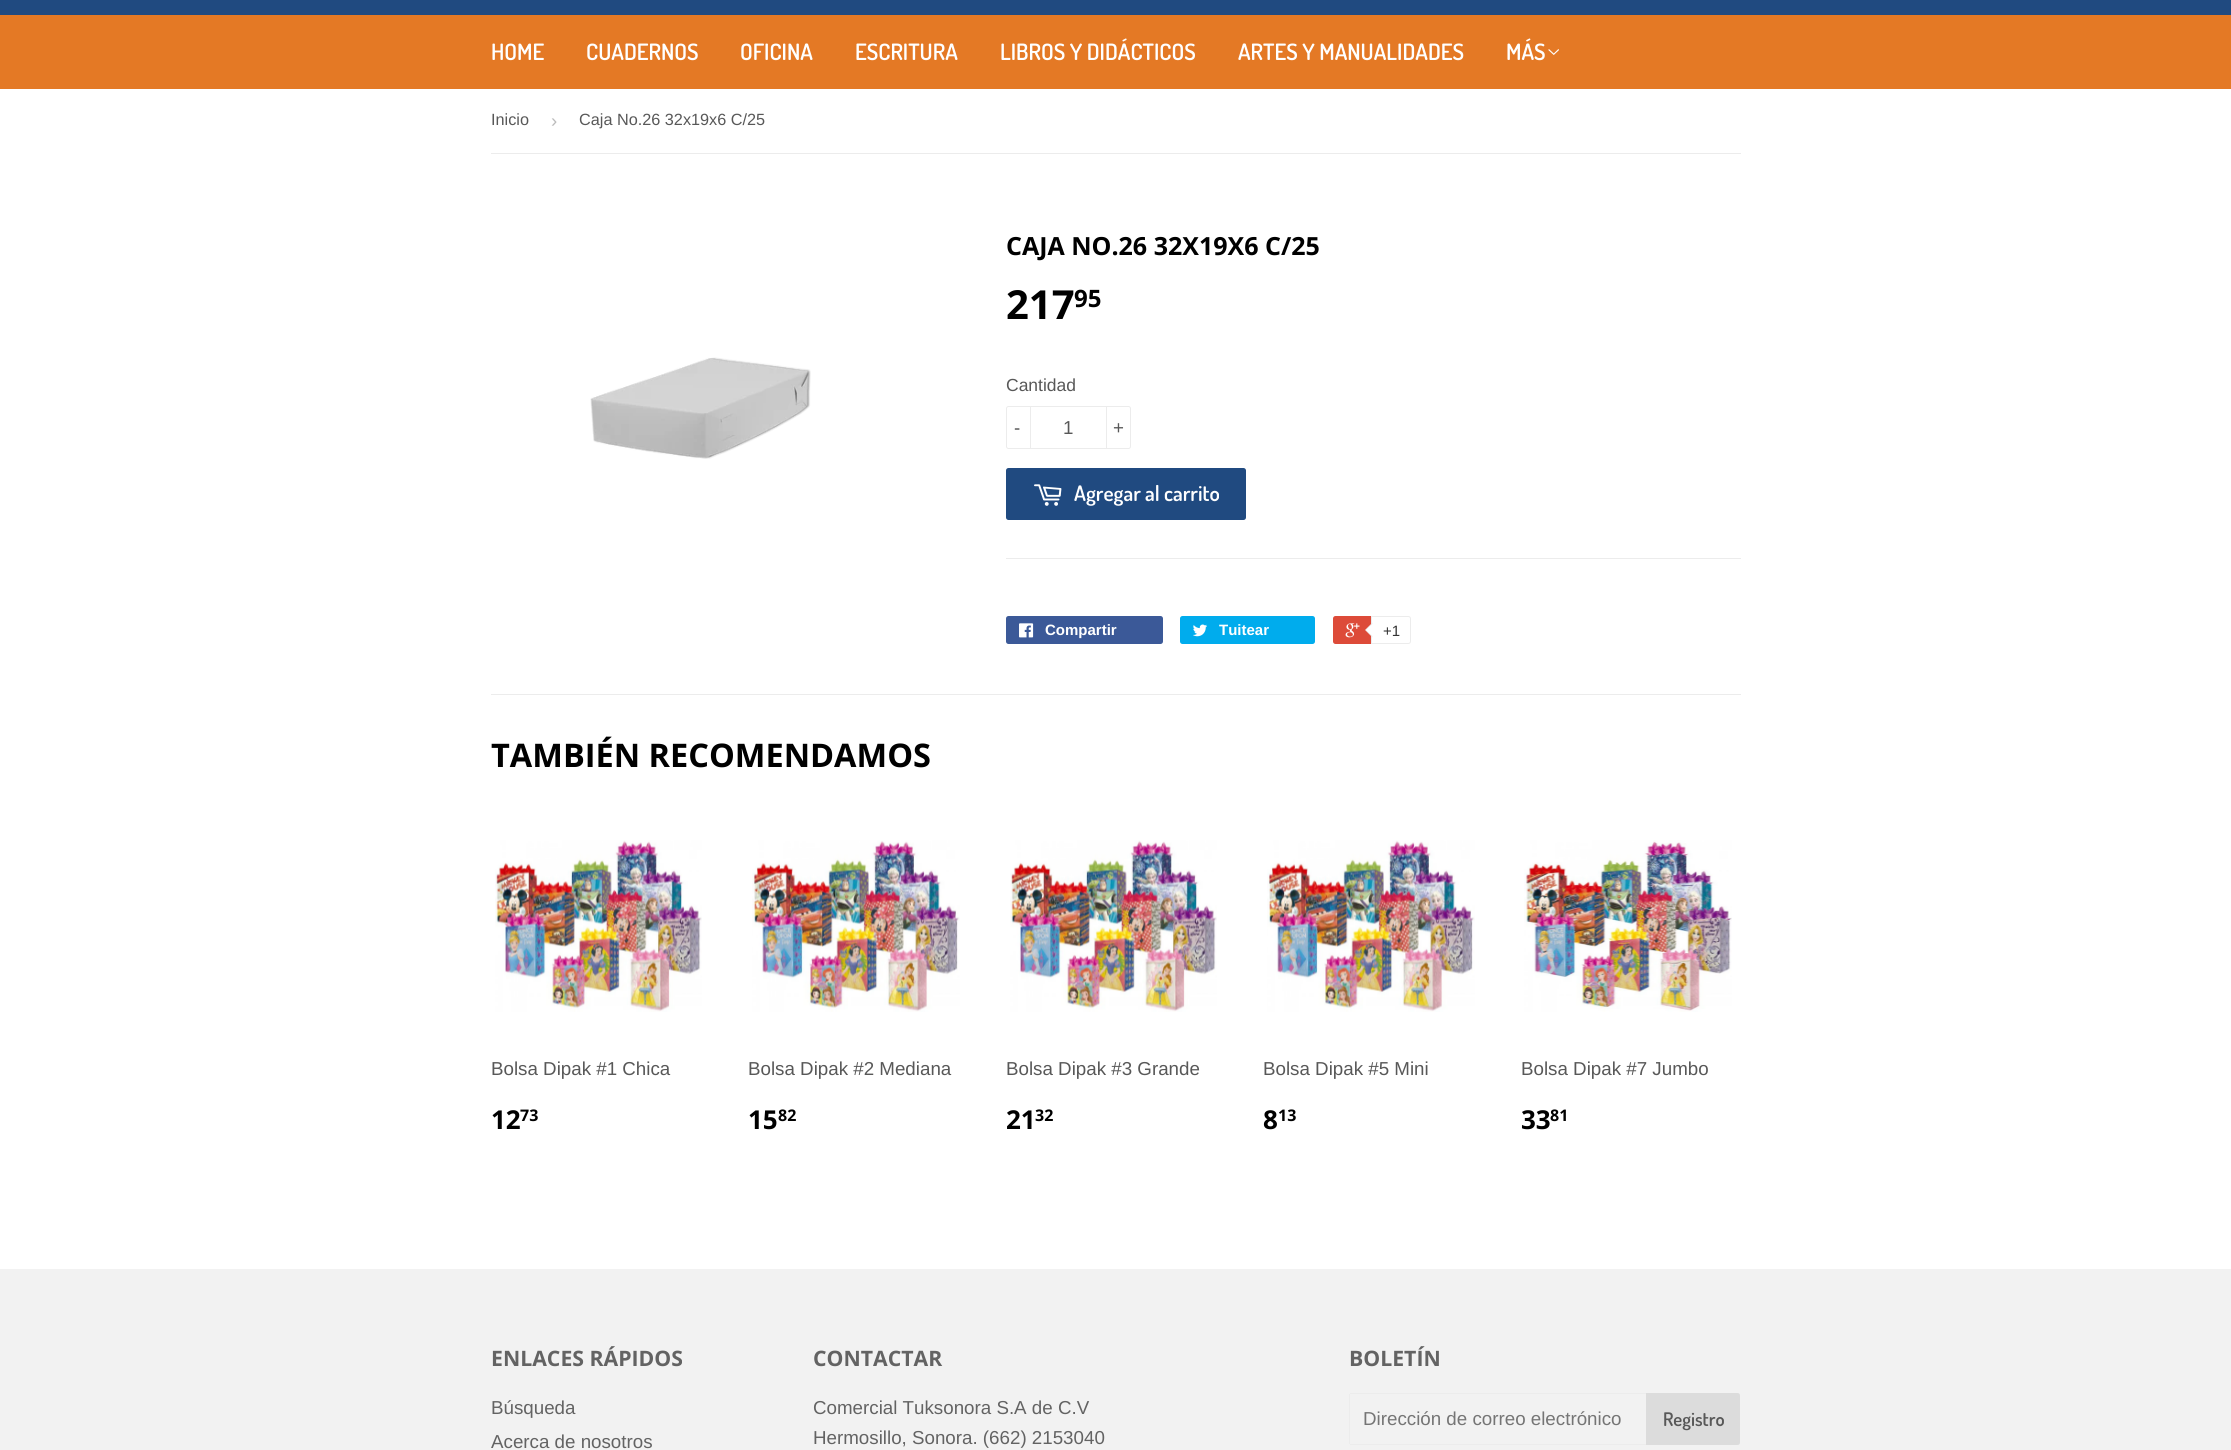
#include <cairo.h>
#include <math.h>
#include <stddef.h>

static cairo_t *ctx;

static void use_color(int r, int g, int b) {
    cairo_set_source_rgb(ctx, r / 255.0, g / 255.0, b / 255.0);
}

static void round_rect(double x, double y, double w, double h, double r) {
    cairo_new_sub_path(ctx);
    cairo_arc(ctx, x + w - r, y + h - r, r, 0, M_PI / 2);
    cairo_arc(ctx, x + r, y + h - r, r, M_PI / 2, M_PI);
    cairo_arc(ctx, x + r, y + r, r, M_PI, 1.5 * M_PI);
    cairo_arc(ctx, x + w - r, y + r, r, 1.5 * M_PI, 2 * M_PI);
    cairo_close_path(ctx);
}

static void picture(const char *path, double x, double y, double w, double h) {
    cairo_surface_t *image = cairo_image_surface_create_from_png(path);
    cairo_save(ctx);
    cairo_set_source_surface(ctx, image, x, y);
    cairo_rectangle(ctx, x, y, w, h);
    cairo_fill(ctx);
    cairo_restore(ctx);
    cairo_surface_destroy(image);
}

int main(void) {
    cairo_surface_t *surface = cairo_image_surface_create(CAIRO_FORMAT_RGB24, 2231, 1450);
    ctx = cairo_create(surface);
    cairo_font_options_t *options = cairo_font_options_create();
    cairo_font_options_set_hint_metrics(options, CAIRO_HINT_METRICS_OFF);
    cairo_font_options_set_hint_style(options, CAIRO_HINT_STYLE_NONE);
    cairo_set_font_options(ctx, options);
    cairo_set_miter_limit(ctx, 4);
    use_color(255, 255, 255);
    cairo_paint(ctx);
    use_color(32, 74, 128);
    cairo_rectangle(ctx, 0, 0, 2231, 15);
    cairo_fill(ctx);
    use_color(228, 121, 37);
    cairo_rectangle(ctx, 0, 15, 2231, 74);
    cairo_fill(ctx);
    cairo_select_font_face(ctx, "Dosis SemiBold", CAIRO_FONT_SLANT_NORMAL, CAIRO_FONT_WEIGHT_NORMAL);
    cairo_set_font_size(ctx, 22.5);
    use_color(255, 255, 255);
    cairo_move_to(ctx, 491, 60);
    cairo_show_text(ctx, "HOME");
    cairo_move_to(ctx, 586, 60);
    cairo_show_text(ctx, "CUADERNOS");
    cairo_move_to(ctx, 740, 60);
    cairo_show_text(ctx, "OFICINA");
    cairo_move_to(ctx, 855, 60);
    cairo_show_text(ctx, "ESCRITURA");
    cairo_move_to(ctx, 1000, 60);
    cairo_show_text(ctx, "LIBROS Y DIDÁCTICOS");
    cairo_move_to(ctx, 1238, 60);
    cairo_show_text(ctx, "ARTES Y MANUALIDADES");
    cairo_move_to(ctx, 1506, 60);
    cairo_show_text(ctx, "MÁS");
    picture("img1.png", 1548, 49, 11, 6);
    use_color(236, 236, 236);
    cairo_rectangle(ctx, 491, 153, 1250, 1);
    cairo_fill(ctx);
    cairo_select_font_face(ctx, "Liberation Sans", CAIRO_FONT_SLANT_NORMAL, CAIRO_FONT_WEIGHT_NORMAL);
    cairo_set_font_size(ctx, 16.25);
    use_color(88, 88, 88);
    cairo_move_to(ctx, 491, 125);
    cairo_show_text(ctx, "Inicio");
    cairo_set_font_size(ctx, 18.75);
    use_color(187, 187, 187);
    cairo_move_to(ctx, 551, 127);
    cairo_show_text(ctx, "›");
    cairo_set_font_size(ctx, 16.25);
    use_color(88, 88, 88);
    cairo_move_to(ctx, 579, 125);
    cairo_show_text(ctx, "Caja No.26 32x19x6 C/25");
    picture("img2.png", 590, 357, 221, 102);
    cairo_select_font_face(ctx, "Open Sans", CAIRO_FONT_SLANT_NORMAL, CAIRO_FONT_WEIGHT_BOLD);
    cairo_set_font_size(ctx, 25);
    use_color(0, 0, 0);
    cairo_move_to(ctx, 1006, 255);
    cairo_show_text(ctx, "CAJA NO.26 32X19X6 C/25");
    cairo_set_font_size(ctx, 40);
    cairo_move_to(ctx, 1006, 319);
    cairo_show_text(ctx, "217");
    cairo_set_font_size(ctx, 24);
    cairo_move_to(ctx, 1074, 307);
    cairo_show_text(ctx, "95");
    cairo_select_font_face(ctx, "Liberation Sans", CAIRO_FONT_SLANT_NORMAL, CAIRO_FONT_WEIGHT_NORMAL);
    cairo_set_font_size(ctx, 17.5);
    use_color(88, 88, 88);
    cairo_move_to(ctx, 1006, 391);
    cairo_show_text(ctx, "Cantidad");
    round_rect(1006.5, 406.5, 124, 42, 2);
    use_color(236, 236, 236);
    cairo_set_line_width(ctx, 1);
    cairo_stroke(ctx);
    cairo_rectangle(ctx, 1030, 406, 1, 43);
    cairo_fill(ctx);
    cairo_set_font_size(ctx, 18.75);
    use_color(88, 88, 88);
    cairo_move_to(ctx, 1014, 434);
    cairo_show_text(ctx, "-");
    cairo_move_to(ctx, 1063, 434);
    cairo_show_text(ctx, "1");
    use_color(236, 236, 236);
    cairo_rectangle(ctx, 1106, 406, 1, 43);
    cairo_fill(ctx);
    use_color(88, 88, 88);
    cairo_move_to(ctx, 1113, 434);
    cairo_show_text(ctx, "+");
    use_color(32, 74, 128);
    round_rect(1006, 468, 240, 52, 2.5);
    cairo_fill(ctx);
    picture("img3.png", 1034, 484, 28, 22);
    cairo_select_font_face(ctx, "Dosis SemiBold", CAIRO_FONT_SLANT_NORMAL, CAIRO_FONT_WEIGHT_NORMAL);
    cairo_set_font_size(ctx, 21.25);
    use_color(255, 255, 255);
    cairo_move_to(ctx, 1074, 501);
    cairo_show_text(ctx, "Agregar al carrito");
    use_color(236, 236, 236);
    cairo_rectangle(ctx, 1006, 558, 735, 1);
    cairo_fill(ctx);
    use_color(59, 89, 152);
    round_rect(1006, 616, 157, 28, 2.5);
    cairo_fill(ctx);
    picture("img4.png", 1019, 623, 15, 15);
    cairo_select_font_face(ctx, "Liberation Sans", CAIRO_FONT_SLANT_NORMAL, CAIRO_FONT_WEIGHT_BOLD);
    cairo_set_font_size(ctx, 15);
    use_color(255, 255, 255);
    cairo_move_to(ctx, 1045, 635);
    cairo_show_text(ctx, "Compartir");
    use_color(0, 172, 237);
    round_rect(1180, 616, 135, 28, 2.5);
    cairo_fill(ctx);
    picture("img5.png", 1193, 624, 14, 13);
    use_color(255, 255, 255);
    cairo_move_to(ctx, 1219, 635);
    cairo_show_text(ctx, "Tuitear");
    use_color(221, 75, 57);
    round_rect(1333, 616, 76, 28, 2.5);
    cairo_fill(ctx);
    picture("img6.png", 1345, 623, 15, 15);
    use_color(255, 255, 255);
    cairo_new_path(ctx);
    cairo_move_to(ctx, 1371.5, 616.5);
    cairo_line_to(ctx, 1408.5, 616.5);
    cairo_curve_to(ctx, 1409.5, 616.5, 1410.5, 617.5, 1410.5, 618.5);
    cairo_line_to(ctx, 1410.5, 641.5);
    cairo_curve_to(ctx, 1410.5, 642.5, 1409.5, 643.5, 1408.5, 643.5);
    cairo_line_to(ctx, 1371.5, 643.5);
    cairo_close_path(ctx);
    cairo_fill_preserve(ctx);
    use_color(236, 236, 236);
    cairo_stroke(ctx);
    cairo_new_path(ctx);
    cairo_move_to(ctx, 1372.5, 622.5);
    cairo_line_to(ctx, 1372.5, 637.5);
    cairo_line_to(ctx, 1365, 630);
    cairo_close_path(ctx);
    cairo_fill(ctx);
    use_color(255, 255, 255);
    cairo_new_path(ctx);
    cairo_move_to(ctx, 1374, 622.5);
    cairo_line_to(ctx, 1374, 637.5);
    cairo_line_to(ctx, 1366, 630);
    cairo_close_path(ctx);
    cairo_fill(ctx);
    cairo_select_font_face(ctx, "Liberation Sans", CAIRO_FONT_SLANT_NORMAL, CAIRO_FONT_WEIGHT_NORMAL);
    use_color(51, 51, 51);
    cairo_move_to(ctx, 1383, 636);
    cairo_show_text(ctx, "+1");
    use_color(236, 236, 236);
    cairo_rectangle(ctx, 491, 694, 1250, 1);
    cairo_fill(ctx);
    cairo_select_font_face(ctx, "Open Sans", CAIRO_FONT_SLANT_NORMAL, CAIRO_FONT_WEIGHT_BOLD);
    cairo_set_font_size(ctx, 32.5);
    use_color(0, 0, 0);
    cairo_move_to(ctx, 491, 767);
    cairo_show_text(ctx, "TAMBIÉN RECOMENDAMOS");
    picture("img7.png", 495, 840, 207, 172);
    cairo_select_font_face(ctx, "Liberation Sans", CAIRO_FONT_SLANT_NORMAL, CAIRO_FONT_WEIGHT_NORMAL);
    cairo_set_font_size(ctx, 18.75);
    use_color(88, 88, 88);
    cairo_move_to(ctx, 491, 1075);
    cairo_show_text(ctx, "Bolsa Dipak #1 Chica");
    cairo_select_font_face(ctx, "Open Sans", CAIRO_FONT_SLANT_NORMAL, CAIRO_FONT_WEIGHT_BOLD);
    cairo_set_font_size(ctx, 26);
    use_color(0, 0, 0);
    cairo_move_to(ctx, 491, 1129);
    cairo_show_text(ctx, "12");
    cairo_set_font_size(ctx, 16);
    cairo_move_to(ctx, 520, 1121);
    cairo_show_text(ctx, "73");
    picture("img8.png", 752, 840, 208, 172);
    cairo_select_font_face(ctx, "Liberation Sans", CAIRO_FONT_SLANT_NORMAL, CAIRO_FONT_WEIGHT_NORMAL);
    cairo_set_font_size(ctx, 18.75);
    use_color(88, 88, 88);
    cairo_move_to(ctx, 748, 1075);
    cairo_show_text(ctx, "Bolsa Dipak #2 Mediana");
    cairo_select_font_face(ctx, "Open Sans", CAIRO_FONT_SLANT_NORMAL, CAIRO_FONT_WEIGHT_BOLD);
    cairo_set_font_size(ctx, 26);
    use_color(0, 0, 0);
    cairo_move_to(ctx, 748, 1129);
    cairo_show_text(ctx, "15");
    cairo_set_font_size(ctx, 16);
    cairo_move_to(ctx, 778, 1121);
    cairo_show_text(ctx, "82");
    picture("img7.png", 1010, 840, 207, 172);
    cairo_select_font_face(ctx, "Liberation Sans", CAIRO_FONT_SLANT_NORMAL, CAIRO_FONT_WEIGHT_NORMAL);
    cairo_set_font_size(ctx, 18.75);
    use_color(88, 88, 88);
    cairo_move_to(ctx, 1006, 1075);
    cairo_show_text(ctx, "Bolsa Dipak #3 Grande");
    cairo_select_font_face(ctx, "Open Sans", CAIRO_FONT_SLANT_NORMAL, CAIRO_FONT_WEIGHT_BOLD);
    cairo_set_font_size(ctx, 26);
    use_color(0, 0, 0);
    cairo_move_to(ctx, 1006, 1129);
    cairo_show_text(ctx, "21");
    cairo_set_font_size(ctx, 16);
    cairo_move_to(ctx, 1035, 1121);
    cairo_show_text(ctx, "32");
    picture("img8.png", 1267, 840, 208, 172);
    cairo_select_font_face(ctx, "Liberation Sans", CAIRO_FONT_SLANT_NORMAL, CAIRO_FONT_WEIGHT_NORMAL);
    cairo_set_font_size(ctx, 18.75);
    use_color(88, 88, 88);
    cairo_move_to(ctx, 1263, 1075);
    cairo_show_text(ctx, "Bolsa Dipak #5 Mini");
    cairo_select_font_face(ctx, "Open Sans", CAIRO_FONT_SLANT_NORMAL, CAIRO_FONT_WEIGHT_BOLD);
    cairo_set_font_size(ctx, 26);
    use_color(0, 0, 0);
    cairo_move_to(ctx, 1263, 1129);
    cairo_show_text(ctx, "8");
    cairo_set_font_size(ctx, 16);
    cairo_move_to(ctx, 1278, 1121);
    cairo_show_text(ctx, "13");
    picture("img9.png", 1524, 840, 208, 172);
    cairo_select_font_face(ctx, "Liberation Sans", CAIRO_FONT_SLANT_NORMAL, CAIRO_FONT_WEIGHT_NORMAL);
    cairo_set_font_size(ctx, 18.75);
    use_color(88, 88, 88);
    cairo_move_to(ctx, 1521, 1075);
    cairo_show_text(ctx, "Bolsa Dipak #7 Jumbo");
    cairo_select_font_face(ctx, "Open Sans", CAIRO_FONT_SLANT_NORMAL, CAIRO_FONT_WEIGHT_BOLD);
    cairo_set_font_size(ctx, 26);
    use_color(0, 0, 0);
    cairo_move_to(ctx, 1521, 1129);
    cairo_show_text(ctx, "33");
    cairo_set_font_size(ctx, 16);
    cairo_move_to(ctx, 1550, 1121);
    cairo_show_text(ctx, "81");
    use_color(242, 242, 242);
    cairo_rectangle(ctx, 0, 1269, 2231, 181);
    cairo_fill(ctx);
    cairo_set_font_size(ctx, 21.25);
    use_color(99, 99, 99);
    cairo_move_to(ctx, 491, 1366);
    cairo_show_text(ctx, "ENLACES RÁPIDOS");
    cairo_select_font_face(ctx, "Liberation Sans", CAIRO_FONT_SLANT_NORMAL, CAIRO_FONT_WEIGHT_NORMAL);
    cairo_set_font_size(ctx, 18.75);
    cairo_move_to(ctx, 491, 1414);
    cairo_show_text(ctx, "Búsqueda");
    cairo_move_to(ctx, 491, 1448);
    cairo_show_text(ctx, "Acerca de nosotros");
    cairo_select_font_face(ctx, "Open Sans", CAIRO_FONT_SLANT_NORMAL, CAIRO_FONT_WEIGHT_BOLD);
    cairo_set_font_size(ctx, 21.25);
    cairo_move_to(ctx, 813, 1366);
    cairo_show_text(ctx, "CONTACTAR");
    cairo_select_font_face(ctx, "Liberation Sans", CAIRO_FONT_SLANT_NORMAL, CAIRO_FONT_WEIGHT_NORMAL);
    cairo_set_font_size(ctx, 18.75);
    cairo_move_to(ctx, 813, 1414);
    cairo_show_text(ctx, "Comercial Tuksonora S.A de C.V");
    cairo_move_to(ctx, 813, 1444);
    cairo_show_text(ctx, "Hermosillo, Sonora. (662) 2153040");
    cairo_select_font_face(ctx, "Open Sans", CAIRO_FONT_SLANT_NORMAL, CAIRO_FONT_WEIGHT_BOLD);
    cairo_set_font_size(ctx, 21.25);
    cairo_move_to(ctx, 1349, 1366);
    cairo_show_text(ctx, "BOLETÍN");
    use_color(236, 236, 236);
    cairo_rectangle(ctx, 1350, 1393, 296, 1);
    cairo_fill(ctx);
    cairo_rectangle(ctx, 1350, 1444, 296, 1);
    cairo_fill(ctx);
    cairo_rectangle(ctx, 1349, 1394, 1, 50);
    cairo_fill(ctx);
    cairo_select_font_face(ctx, "Liberation Sans", CAIRO_FONT_SLANT_NORMAL, CAIRO_FONT_WEIGHT_NORMAL);
    cairo_set_font_size(ctx, 18.75);
    use_color(117, 117, 117);
    cairo_move_to(ctx, 1363, 1425);
    cairo_show_text(ctx, "Dirección de correo electrónico");
    use_color(220, 220, 220);
    cairo_new_path(ctx);
    cairo_move_to(ctx, 1646, 1393);
    cairo_line_to(ctx, 1737.5, 1393);
    cairo_curve_to(ctx, 1739, 1393, 1740, 1394, 1740, 1395.5);
    cairo_line_to(ctx, 1740, 1442.5);
    cairo_curve_to(ctx, 1740, 1444, 1739, 1445, 1737.5, 1445);
    cairo_line_to(ctx, 1646, 1445);
    cairo_close_path(ctx);
    cairo_fill(ctx);
    cairo_select_font_face(ctx, "Dosis SemiBold", CAIRO_FONT_SLANT_NORMAL, CAIRO_FONT_WEIGHT_NORMAL);
    use_color(88, 88, 88);
    cairo_move_to(ctx, 1663, 1426);
    cairo_show_text(ctx, "Registro");
    cairo_surface_write_to_png(surface, "result.png");
    cairo_font_options_destroy(options);
    cairo_destroy(ctx);
    cairo_surface_destroy(surface);
    return 0;
}
